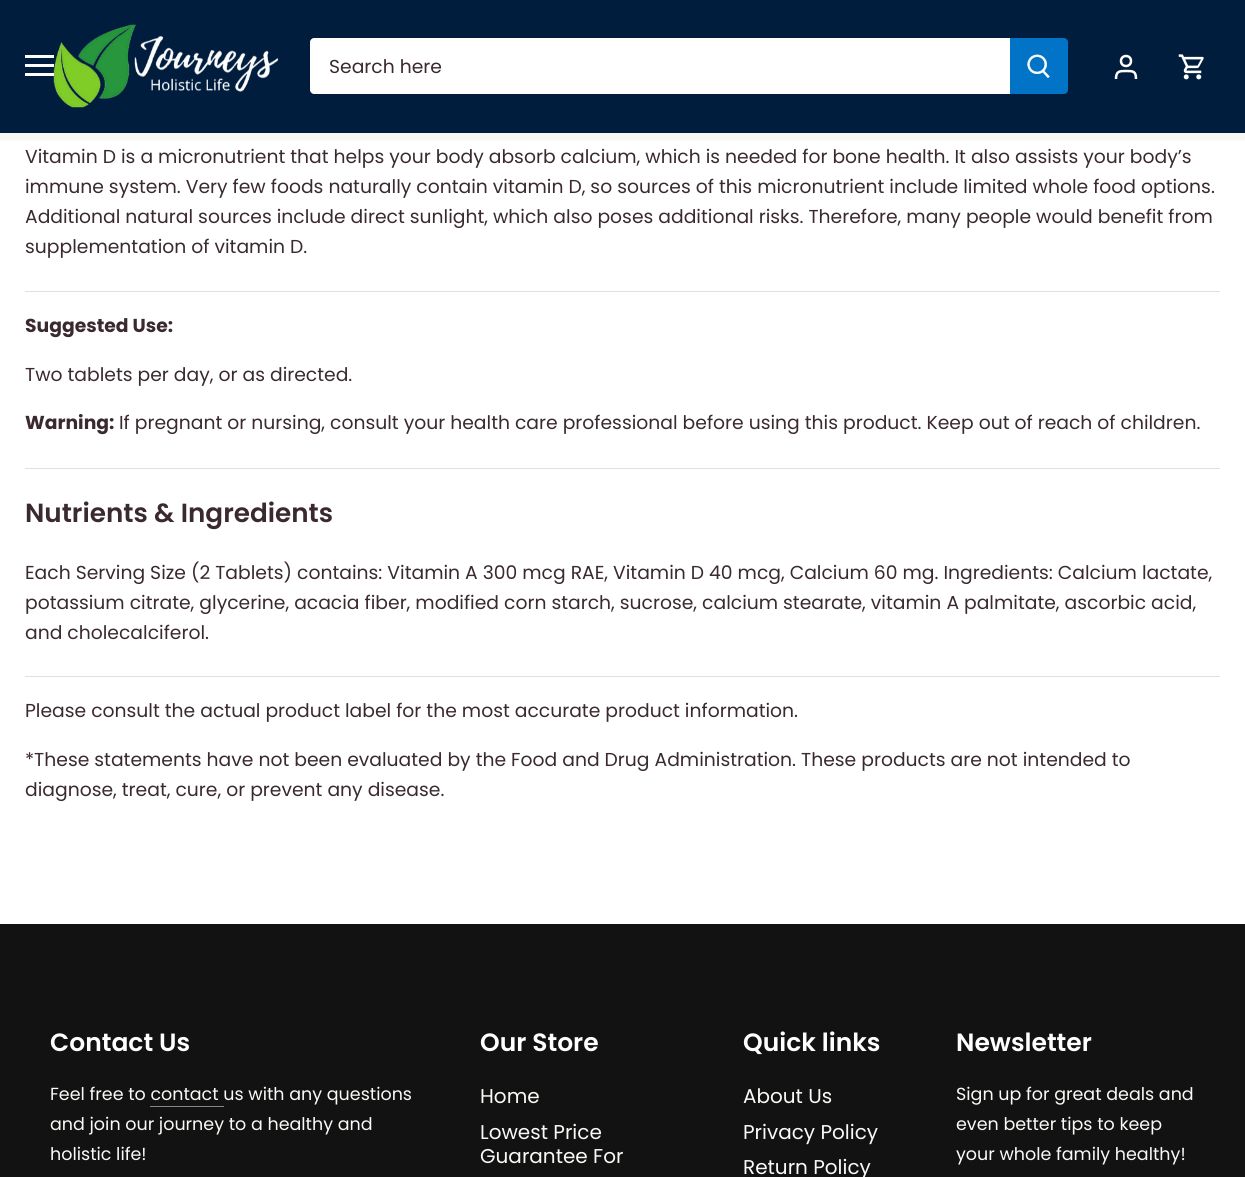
#include <cairo.h>
#include <math.h>
#include <stddef.h>

static cairo_t *ctx;

static void use_color(int r, int g, int b) {
    cairo_set_source_rgb(ctx, r / 255.0, g / 255.0, b / 255.0);
}

static void round_rect(double x, double y, double w, double h, double r) {
    cairo_new_sub_path(ctx);
    cairo_arc(ctx, x + w - r, y + h - r, r, 0, M_PI / 2);
    cairo_arc(ctx, x + r, y + h - r, r, M_PI / 2, M_PI);
    cairo_arc(ctx, x + r, y + r, r, M_PI, 1.5 * M_PI);
    cairo_arc(ctx, x + w - r, y + r, r, 1.5 * M_PI, 2 * M_PI);
    cairo_close_path(ctx);
}

static void shadow(double x, double y, double w, double h, double r, double blur, double alpha) {
    cairo_push_group_with_content(ctx, CAIRO_CONTENT_ALPHA);
    cairo_set_operator(ctx, CAIRO_OPERATOR_SOURCE);
    for (int i = 15; i >= -15 && fmin(w, h) + blur * i / 3 > 0; i -= 2) {
        double e = blur * i / 6;
        cairo_set_source_rgba(ctx, 0, 0, 0, alpha * erfc((i - 1) / 8.5) / 2);
        round_rect(x - e, y - e, w + 2 * e, h + 2 * e, fmax(0, fmin(r + e + blur * .6, fmin(w, h) / 2 + e)));
        cairo_fill(ctx);
    }
    cairo_pattern_t *soft = cairo_pop_group(ctx);
    cairo_mask(ctx, soft);
    cairo_pattern_destroy(soft);
}

static void picture(const char *path, double x, double y, double w, double h) {
    cairo_surface_t *image = cairo_image_surface_create_from_png(path);
    cairo_save(ctx);
    cairo_set_source_surface(ctx, image, x, y);
    cairo_rectangle(ctx, x, y, w, h);
    cairo_fill(ctx);
    cairo_restore(ctx);
    cairo_surface_destroy(image);
}

int main(void) {
    cairo_surface_t *surface = cairo_image_surface_create(CAIRO_FORMAT_RGB24, 1245, 1177);
    ctx = cairo_create(surface);
    cairo_font_options_t *options = cairo_font_options_create();
    cairo_font_options_set_hint_metrics(options, CAIRO_HINT_METRICS_OFF);
    cairo_font_options_set_hint_style(options, CAIRO_HINT_STYLE_NONE);
    cairo_set_font_options(ctx, options);
    cairo_set_miter_limit(ctx, 4);
    use_color(18, 18, 18);
    cairo_paint(ctx);
    use_color(255, 255, 255);
    cairo_rectangle(ctx, 0, 138, 1245, 786);
    cairo_fill(ctx);
    use_color(0, 0, 0);
    shadow(-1, -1, 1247, 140, 0, 2, 0.08);
    use_color(249, 247, 244);
    cairo_rectangle(ctx, 0, 133, 1245, 5);
    cairo_fill(ctx);
    use_color(0, 29, 61);
    cairo_rectangle(ctx, 0, 0, 1245, 133);
    cairo_fill(ctx);
    picture("img1.png", 53, 24, 226, 84);
    use_color(255, 255, 255);
    cairo_rectangle(ctx, 25, 55, 29, 3);
    cairo_fill(ctx);
    cairo_rectangle(ctx, 25, 64, 29, 3);
    cairo_fill(ctx);
    cairo_rectangle(ctx, 25, 73, 29, 3);
    cairo_fill(ctx);
    cairo_new_path(ctx);
    cairo_move_to(ctx, 314, 38);
    cairo_line_to(ctx, 1011, 38);
    cairo_line_to(ctx, 1011, 94);
    cairo_line_to(ctx, 314, 94);
    cairo_curve_to(ctx, 312, 94, 310, 92, 310, 90);
    cairo_line_to(ctx, 310, 42);
    cairo_curve_to(ctx, 310, 40, 312, 38, 314, 38);
    cairo_close_path(ctx);
    cairo_fill(ctx);
    cairo_select_font_face(ctx, "Poppins", CAIRO_FONT_SLANT_NORMAL, CAIRO_FONT_WEIGHT_NORMAL);
    cairo_set_font_size(ctx, 18.75);
    use_color(58, 42, 47);
    cairo_move_to(ctx, 329, 73);
    cairo_show_text(ctx, "Search here");
    use_color(1, 116, 199);
    cairo_new_path(ctx);
    cairo_move_to(ctx, 1010, 38);
    cairo_line_to(ctx, 1064, 38);
    cairo_curve_to(ctx, 1066, 38, 1068, 40, 1068, 42);
    cairo_line_to(ctx, 1068, 90);
    cairo_curve_to(ctx, 1068, 92, 1066, 94, 1064, 94);
    cairo_line_to(ctx, 1010, 94);
    cairo_close_path(ctx);
    cairo_fill(ctx);
    picture("img2.png", 1027, 54, 23, 24);
    cairo_arc(ctx, 1126, 61, 5, 0, 2 * M_PI);
    use_color(255, 255, 255);
    cairo_set_line_width(ctx, 2.5);
    cairo_stroke(ctx);
    cairo_new_path(ctx);
    cairo_move_to(ctx, 1136, 79);
    cairo_curve_to(ctx, 1136, 71, 1133, 71, 1126, 71);
    cairo_curve_to(ctx, 1119.5, 71, 1116, 71, 1116, 79);
    cairo_stroke(ctx);
    picture("img3.png", 1178, 54, 26, 26);
    use_color(58, 42, 47);
    cairo_move_to(ctx, 25, 163);
    cairo_show_text(ctx, "Vitamin D is a micronutrient that helps your body absorb calcium, which is needed for bone health. It also assists your body’s");
    cairo_move_to(ctx, 25, 193);
    cairo_show_text(ctx, "immune system. Very few foods naturally contain vitamin D, so sources of this micronutrient include limited whole food options.");
    cairo_move_to(ctx, 25, 223);
    cairo_show_text(ctx, "Additional natural sources include direct sunlight, which also poses additional risks. Therefore, many people would benefit from");
    cairo_move_to(ctx, 25, 253);
    cairo_show_text(ctx, "supplementation of vitamin D.");
    use_color(224, 224, 224);
    cairo_rectangle(ctx, 25, 291, 1195, 1);
    cairo_fill(ctx);
    cairo_select_font_face(ctx, "Poppins", CAIRO_FONT_SLANT_NORMAL, CAIRO_FONT_WEIGHT_BOLD);
    use_color(58, 42, 47);
    cairo_move_to(ctx, 25, 332);
    cairo_show_text(ctx, "Suggested Use:");
    cairo_select_font_face(ctx, "Poppins", CAIRO_FONT_SLANT_NORMAL, CAIRO_FONT_WEIGHT_NORMAL);
    cairo_move_to(ctx, 25, 381);
    cairo_show_text(ctx, "Two tablets per day, or as directed.");
    cairo_select_font_face(ctx, "Poppins", CAIRO_FONT_SLANT_NORMAL, CAIRO_FONT_WEIGHT_BOLD);
    cairo_move_to(ctx, 25, 429);
    cairo_show_text(ctx, "Warning:");
    cairo_select_font_face(ctx, "Poppins", CAIRO_FONT_SLANT_NORMAL, CAIRO_FONT_WEIGHT_NORMAL);
    cairo_move_to(ctx, 119, 429);
    cairo_show_text(ctx, "If pregnant or nursing, consult your health care professional before using this product. Keep out of reach of children.");
    use_color(224, 224, 224);
    cairo_rectangle(ctx, 25, 468, 1195, 1);
    cairo_fill(ctx);
    cairo_select_font_face(ctx, "Poppins SemiBold", CAIRO_FONT_SLANT_NORMAL, CAIRO_FONT_WEIGHT_NORMAL);
    cairo_set_font_size(ctx, 26.25);
    use_color(58, 42, 47);
    cairo_move_to(ctx, 25, 522);
    cairo_show_text(ctx, "Nutrients & Ingredients");
    cairo_select_font_face(ctx, "Poppins", CAIRO_FONT_SLANT_NORMAL, CAIRO_FONT_WEIGHT_NORMAL);
    cairo_set_font_size(ctx, 18.75);
    cairo_move_to(ctx, 25, 579);
    cairo_show_text(ctx, "Each Serving Size (2 Tablets) contains: Vitamin A 300 mcg RAE, Vitamin D 40 mcg, Calcium 60 mg. Ingredients: Calcium lactate,");
    cairo_move_to(ctx, 25, 609);
    cairo_show_text(ctx, "potassium citrate, glycerine, acacia fiber, modified corn starch, sucrose, calcium stearate, vitamin A palmitate, ascorbic acid,");
    cairo_move_to(ctx, 25, 639);
    cairo_show_text(ctx, "and cholecalciferol.");
    use_color(224, 224, 224);
    cairo_rectangle(ctx, 25, 676, 1195, 1);
    cairo_fill(ctx);
    use_color(58, 42, 47);
    cairo_move_to(ctx, 25, 717);
    cairo_show_text(ctx, "Please consult the actual product label for the most accurate product information.");
    cairo_move_to(ctx, 25, 766);
    cairo_show_text(ctx, "*These statements have not been evaluated by the Food and Drug Administration. These products are not intended to");
    cairo_move_to(ctx, 25, 796);
    cairo_show_text(ctx, "diagnose, treat, cure, or prevent any disease.");
    cairo_select_font_face(ctx, "Poppins SemiBold", CAIRO_FONT_SLANT_NORMAL, CAIRO_FONT_WEIGHT_NORMAL);
    cairo_set_font_size(ctx, 25);
    use_color(255, 255, 255);
    cairo_move_to(ctx, 50, 1051);
    cairo_show_text(ctx, "Contact Us");
    cairo_select_font_face(ctx, "Poppins", CAIRO_FONT_SLANT_NORMAL, CAIRO_FONT_WEIGHT_NORMAL);
    cairo_set_font_size(ctx, 17.5);
    use_color(250, 249, 246);
    cairo_move_to(ctx, 50, 1100);
    cairo_show_text(ctx, "Feel free to contact us with any questions");
    use_color(134, 134, 132);
    cairo_rectangle(ctx, 150, 1106, 74, 1);
    cairo_fill(ctx);
    use_color(250, 249, 246);
    cairo_move_to(ctx, 50, 1130);
    cairo_show_text(ctx, "and join our journey to a healthy and");
    cairo_move_to(ctx, 50, 1160);
    cairo_show_text(ctx, "holistic life!");
    cairo_select_font_face(ctx, "Poppins SemiBold", CAIRO_FONT_SLANT_NORMAL, CAIRO_FONT_WEIGHT_NORMAL);
    cairo_set_font_size(ctx, 25);
    use_color(255, 255, 255);
    cairo_move_to(ctx, 480, 1051);
    cairo_show_text(ctx, "Our Store");
    cairo_select_font_face(ctx, "Poppins", CAIRO_FONT_SLANT_NORMAL, CAIRO_FONT_WEIGHT_NORMAL);
    cairo_set_font_size(ctx, 20);
    use_color(250, 249, 246);
    cairo_move_to(ctx, 480, 1103);
    cairo_show_text(ctx, "Home");
    cairo_move_to(ctx, 480, 1139);
    cairo_show_text(ctx, "Lowest Price");
    cairo_move_to(ctx, 480, 1163);
    cairo_show_text(ctx, "Guarantee For");
    cairo_select_font_face(ctx, "Poppins SemiBold", CAIRO_FONT_SLANT_NORMAL, CAIRO_FONT_WEIGHT_NORMAL);
    cairo_set_font_size(ctx, 25);
    use_color(255, 255, 255);
    cairo_move_to(ctx, 743, 1051);
    cairo_show_text(ctx, "Quick links");
    cairo_select_font_face(ctx, "Poppins", CAIRO_FONT_SLANT_NORMAL, CAIRO_FONT_WEIGHT_NORMAL);
    cairo_set_font_size(ctx, 20);
    use_color(250, 249, 246);
    cairo_move_to(ctx, 743, 1103);
    cairo_show_text(ctx, "About Us");
    cairo_move_to(ctx, 743, 1139);
    cairo_show_text(ctx, "Privacy Policy");
    cairo_move_to(ctx, 743, 1174);
    cairo_show_text(ctx, "Return Policy");
    cairo_select_font_face(ctx, "Poppins SemiBold", CAIRO_FONT_SLANT_NORMAL, CAIRO_FONT_WEIGHT_NORMAL);
    cairo_set_font_size(ctx, 25);
    use_color(255, 255, 255);
    cairo_move_to(ctx, 956, 1051);
    cairo_show_text(ctx, "Newsletter");
    cairo_select_font_face(ctx, "Poppins", CAIRO_FONT_SLANT_NORMAL, CAIRO_FONT_WEIGHT_NORMAL);
    cairo_set_font_size(ctx, 17.5);
    use_color(250, 249, 246);
    cairo_move_to(ctx, 956, 1100);
    cairo_show_text(ctx, "Sign up for great deals and");
    cairo_move_to(ctx, 956, 1130);
    cairo_show_text(ctx, "even better tips to keep");
    cairo_move_to(ctx, 956, 1160);
    cairo_show_text(ctx, "your whole family healthy!");
    cairo_surface_write_to_png(surface, "result.png");
    cairo_font_options_destroy(options);
    cairo_destroy(ctx);
    cairo_surface_destroy(surface);
    return 0;
}
